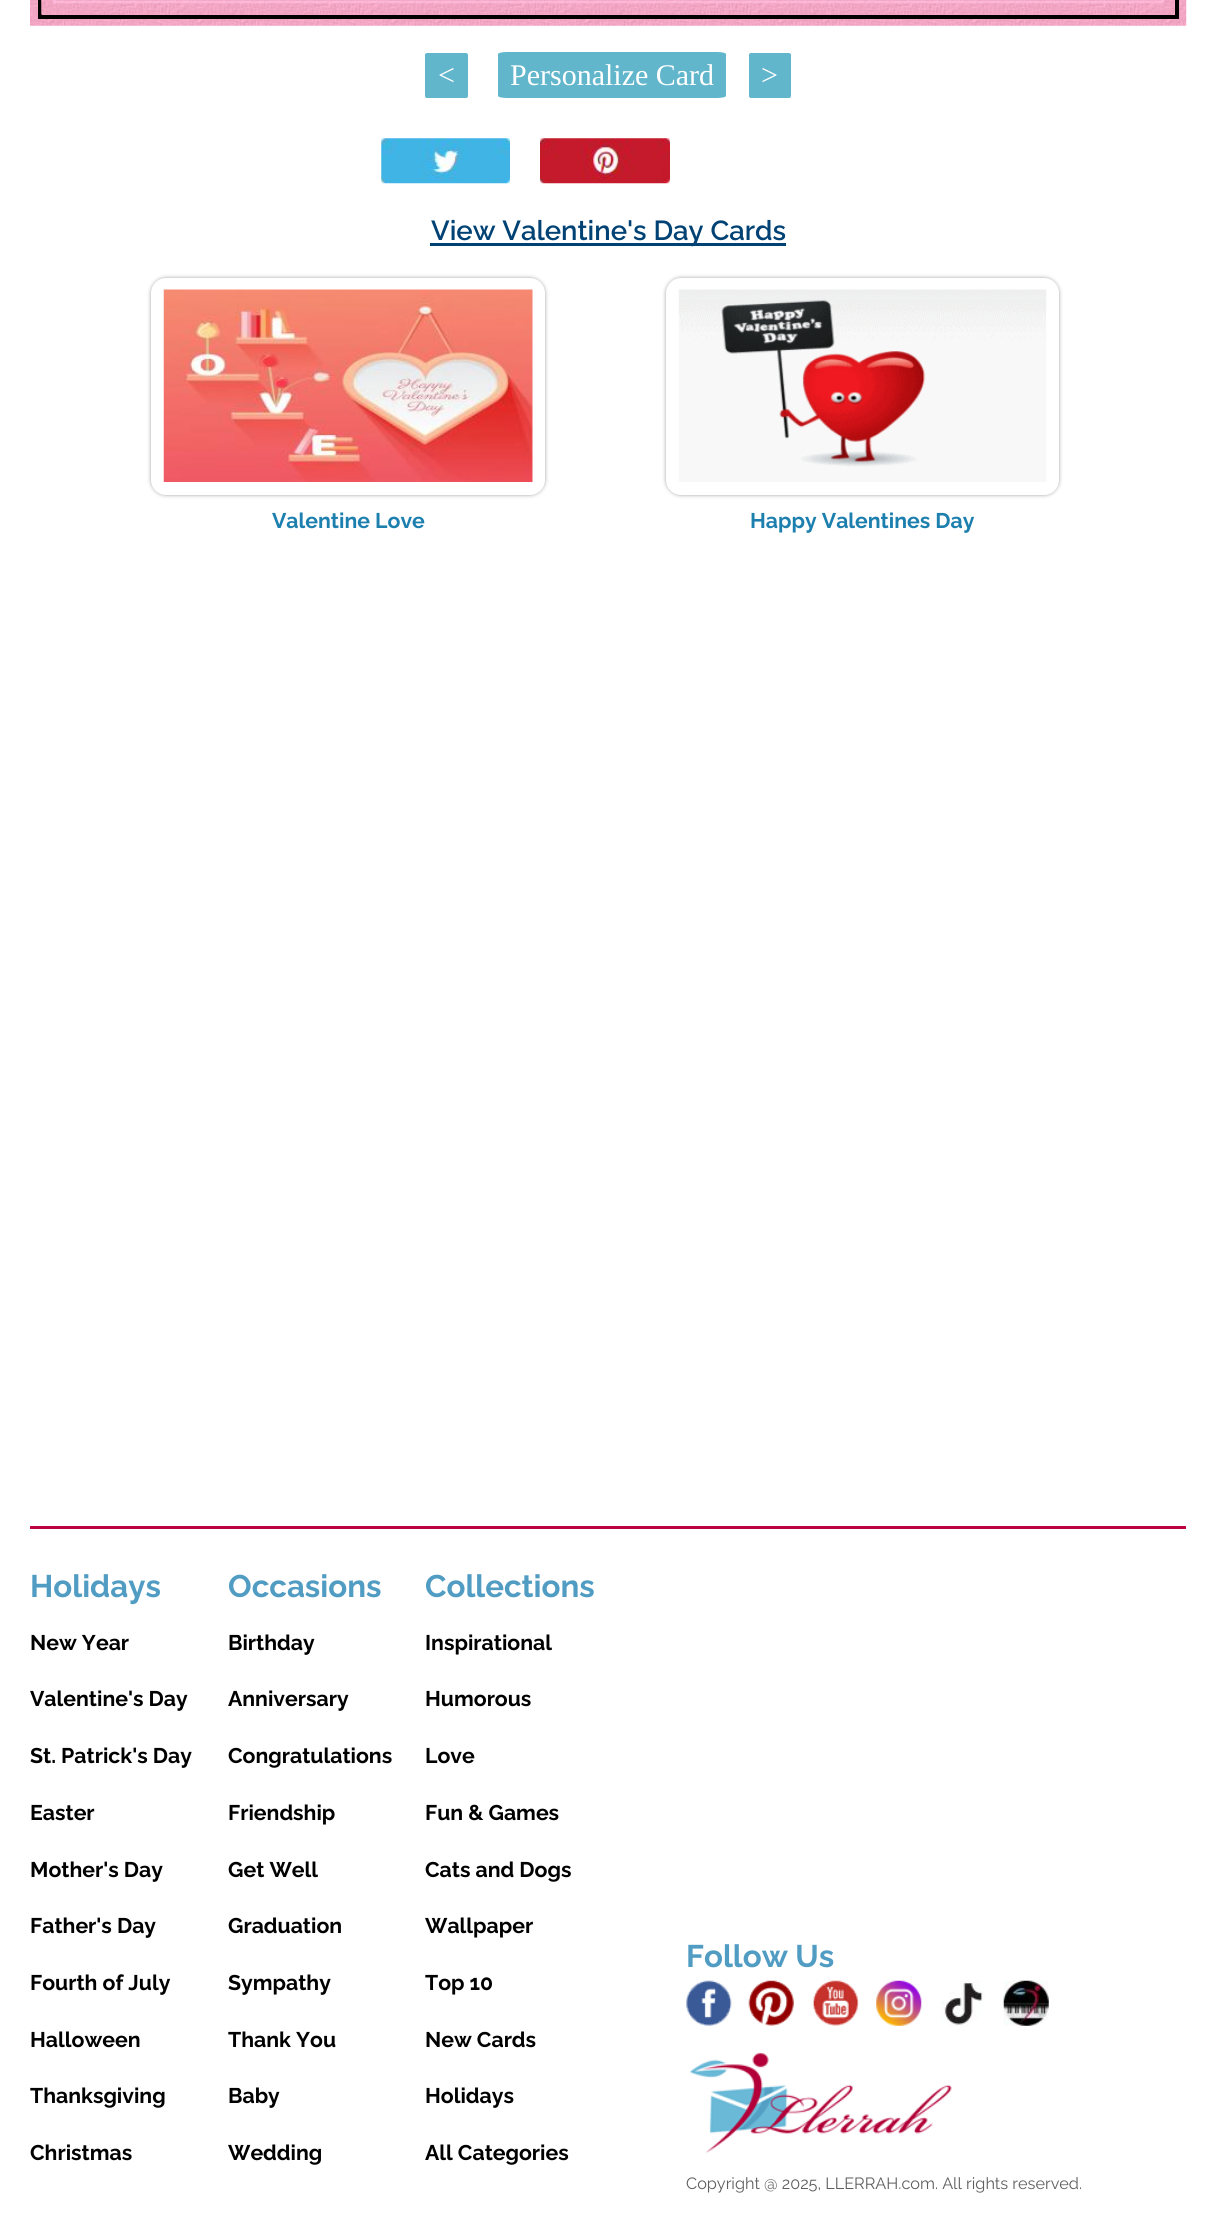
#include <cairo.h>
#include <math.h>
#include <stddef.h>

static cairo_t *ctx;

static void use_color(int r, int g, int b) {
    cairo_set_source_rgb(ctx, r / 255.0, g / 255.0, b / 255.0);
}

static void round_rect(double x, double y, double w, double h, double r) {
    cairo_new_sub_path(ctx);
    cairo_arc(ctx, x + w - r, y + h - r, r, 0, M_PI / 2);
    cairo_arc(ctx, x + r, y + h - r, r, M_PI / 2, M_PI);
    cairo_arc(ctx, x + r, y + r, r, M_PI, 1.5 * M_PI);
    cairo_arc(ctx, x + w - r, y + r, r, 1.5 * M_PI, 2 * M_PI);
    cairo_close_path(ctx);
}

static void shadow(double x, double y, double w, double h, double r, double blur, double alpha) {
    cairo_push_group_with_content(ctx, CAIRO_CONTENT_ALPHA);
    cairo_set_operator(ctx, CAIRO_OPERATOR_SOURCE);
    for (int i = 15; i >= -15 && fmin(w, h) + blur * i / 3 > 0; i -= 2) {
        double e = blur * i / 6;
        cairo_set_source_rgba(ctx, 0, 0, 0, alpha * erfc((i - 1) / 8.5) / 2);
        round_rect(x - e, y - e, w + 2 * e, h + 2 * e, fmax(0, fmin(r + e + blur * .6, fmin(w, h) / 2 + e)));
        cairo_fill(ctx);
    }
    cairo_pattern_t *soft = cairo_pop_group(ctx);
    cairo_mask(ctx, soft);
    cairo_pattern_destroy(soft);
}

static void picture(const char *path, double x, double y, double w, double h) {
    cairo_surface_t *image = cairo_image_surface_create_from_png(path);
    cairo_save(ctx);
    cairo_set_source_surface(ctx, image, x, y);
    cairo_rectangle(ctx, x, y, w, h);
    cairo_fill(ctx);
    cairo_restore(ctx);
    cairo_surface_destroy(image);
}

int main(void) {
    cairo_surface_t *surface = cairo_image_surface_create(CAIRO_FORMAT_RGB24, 1216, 2237);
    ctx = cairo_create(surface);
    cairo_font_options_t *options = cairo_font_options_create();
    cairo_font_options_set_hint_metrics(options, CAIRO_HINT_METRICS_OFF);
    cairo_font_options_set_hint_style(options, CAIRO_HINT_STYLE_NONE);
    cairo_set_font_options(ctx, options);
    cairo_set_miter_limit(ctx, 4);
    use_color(255, 255, 255);
    cairo_paint(ctx);
    picture("img1.png", 30, 0, 1157, 26);
    cairo_rectangle(ctx, 40, -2, 1137, 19);
    use_color(0, 0, 0);
    cairo_set_line_width(ctx, 4);
    cairo_stroke(ctx);
    picture("img2.png", 41, 0, 1134, 15);
    picture("img3.png", 52, 0, 1112, 4);
    picture("img4.png", 55, 0, 1106, 1);
    use_color(97, 182, 203);
    round_rect(425, 53, 43, 45, 2);
    cairo_fill(ctx);
    cairo_select_font_face(ctx, "Liberation Serif", CAIRO_FONT_SLANT_NORMAL, CAIRO_FONT_WEIGHT_NORMAL);
    cairo_set_font_size(ctx, 30);
    use_color(255, 255, 255);
    cairo_move_to(ctx, 438, 85);
    cairo_show_text(ctx, "<");
    use_color(97, 182, 203);
    cairo_new_path(ctx);
    cairo_move_to(ctx, 507, 52);
    cairo_line_to(ctx, 717, 52);
    cairo_curve_to(ctx, 722, 52, 726, 53, 726, 54);
    cairo_line_to(ctx, 726, 96);
    cairo_curve_to(ctx, 726, 97, 722, 98, 717, 98);
    cairo_line_to(ctx, 507, 98);
    cairo_curve_to(ctx, 502, 98, 498, 97, 498, 96);
    cairo_line_to(ctx, 498, 54);
    cairo_curve_to(ctx, 498, 53, 502, 52, 507, 52);
    cairo_close_path(ctx);
    cairo_fill(ctx);
    use_color(255, 255, 255);
    cairo_move_to(ctx, 510, 85);
    cairo_show_text(ctx, "Personalize Card");
    use_color(97, 182, 203);
    round_rect(749, 53, 42, 45, 2);
    cairo_fill(ctx);
    use_color(255, 255, 255);
    cairo_move_to(ctx, 761, 85);
    cairo_show_text(ctx, ">");
    picture("img5.png", 381, 138, 129, 46);
    picture("img6.png", 540, 138, 130, 46);
    use_color(0, 66, 116);
    cairo_rectangle(ctx, 430, 243, 356, 3);
    cairo_fill(ctx);
    cairo_select_font_face(ctx, "Raleway SemiBold", CAIRO_FONT_SLANT_NORMAL, CAIRO_FONT_WEIGHT_NORMAL);
    cairo_set_font_size(ctx, 27.5);
    cairo_move_to(ctx, 431, 240);
    cairo_show_text(ctx, "View Valentine's Day Cards");
    use_color(161, 161, 161);
    shadow(151, 278, 394, 217, 15, 2, 1);
    use_color(255, 255, 255);
    round_rect(151, 278, 394, 217, 15);
    cairo_fill(ctx);
    picture("img7.png", 163, 289, 370, 193);
    cairo_select_font_face(ctx, "Raleway", CAIRO_FONT_SLANT_NORMAL, CAIRO_FONT_WEIGHT_BOLD);
    cairo_set_font_size(ctx, 21.25);
    use_color(28, 127, 174);
    cairo_move_to(ctx, 272, 528);
    cairo_show_text(ctx, "Valentine Love");
    use_color(161, 161, 161);
    shadow(666, 278, 393, 217, 15, 2, 1);
    use_color(255, 255, 255);
    round_rect(666, 278, 393, 217, 15);
    cairo_fill(ctx);
    picture("img8.png", 678, 289, 369, 193);
    use_color(28, 127, 174);
    cairo_move_to(ctx, 750, 528);
    cairo_show_text(ctx, "Happy Valentines Day");
    use_color(188, 2, 63);
    cairo_rectangle(ctx, 30, 1526, 1156, 3);
    cairo_fill(ctx);
    cairo_set_font_size(ctx, 31.25);
    use_color(81, 156, 195);
    cairo_move_to(ctx, 30, 1597);
    cairo_show_text(ctx, "Holidays");
    cairo_set_font_size(ctx, 21.25);
    use_color(0, 0, 0);
    cairo_move_to(ctx, 30, 1650);
    cairo_show_text(ctx, "New Year");
    cairo_move_to(ctx, 30, 1706);
    cairo_show_text(ctx, "Valentine's Day");
    cairo_move_to(ctx, 30, 1763);
    cairo_show_text(ctx, "St. Patrick's Day");
    cairo_move_to(ctx, 30, 1820);
    cairo_show_text(ctx, "Easter");
    cairo_move_to(ctx, 30, 1877);
    cairo_show_text(ctx, "Mother's Day");
    cairo_move_to(ctx, 30, 1933);
    cairo_show_text(ctx, "Father's Day");
    cairo_move_to(ctx, 30, 1990);
    cairo_show_text(ctx, "Fourth of July");
    cairo_move_to(ctx, 30, 2047);
    cairo_show_text(ctx, "Halloween");
    cairo_move_to(ctx, 30, 2103);
    cairo_show_text(ctx, "Thanksgiving");
    cairo_move_to(ctx, 30, 2160);
    cairo_show_text(ctx, "Christmas");
    cairo_set_font_size(ctx, 31.25);
    use_color(81, 156, 195);
    cairo_move_to(ctx, 228, 1597);
    cairo_show_text(ctx, "Occasions");
    cairo_set_font_size(ctx, 21.25);
    use_color(0, 0, 0);
    cairo_move_to(ctx, 228, 1650);
    cairo_show_text(ctx, "Birthday");
    cairo_move_to(ctx, 228, 1706);
    cairo_show_text(ctx, "Anniversary");
    cairo_move_to(ctx, 228, 1763);
    cairo_show_text(ctx, "Congratulations");
    cairo_move_to(ctx, 228, 1820);
    cairo_show_text(ctx, "Friendship");
    cairo_move_to(ctx, 228, 1877);
    cairo_show_text(ctx, "Get Well");
    cairo_move_to(ctx, 228, 1933);
    cairo_show_text(ctx, "Graduation");
    cairo_move_to(ctx, 228, 1990);
    cairo_show_text(ctx, "Sympathy");
    cairo_move_to(ctx, 228, 2047);
    cairo_show_text(ctx, "Thank You");
    cairo_move_to(ctx, 228, 2103);
    cairo_show_text(ctx, "Baby");
    cairo_move_to(ctx, 228, 2160);
    cairo_show_text(ctx, "Wedding");
    cairo_set_font_size(ctx, 31.25);
    use_color(81, 156, 195);
    cairo_move_to(ctx, 425, 1597);
    cairo_show_text(ctx, "Collections");
    cairo_set_font_size(ctx, 21.25);
    use_color(0, 0, 0);
    cairo_move_to(ctx, 425, 1650);
    cairo_show_text(ctx, "Inspirational");
    cairo_move_to(ctx, 425, 1706);
    cairo_show_text(ctx, "Humorous");
    cairo_move_to(ctx, 425, 1763);
    cairo_show_text(ctx, "Love");
    cairo_move_to(ctx, 425, 1820);
    cairo_show_text(ctx, "Fun & Games");
    cairo_move_to(ctx, 425, 1877);
    cairo_show_text(ctx, "Cats and Dogs");
    cairo_move_to(ctx, 425, 1933);
    cairo_show_text(ctx, "Wallpaper");
    cairo_move_to(ctx, 425, 1990);
    cairo_show_text(ctx, "Top 10");
    cairo_move_to(ctx, 425, 2047);
    cairo_show_text(ctx, "New Cards");
    cairo_move_to(ctx, 425, 2103);
    cairo_show_text(ctx, "Holidays");
    cairo_move_to(ctx, 425, 2160);
    cairo_show_text(ctx, "All Categories");
    cairo_set_font_size(ctx, 31.25);
    use_color(81, 156, 195);
    cairo_move_to(ctx, 686, 1967);
    cairo_show_text(ctx, "Follow Us");
    picture("img9.png", 686, 1980, 46, 46);
    picture("img10.png", 748, 1980, 46, 46);
    picture("img11.png", 812, 1980, 47, 46);
    picture("img12.png", 876, 1980, 46, 46);
    picture("img13.png", 940, 1981, 45, 45);
    picture("img14.png", 1003, 1980, 46, 46);
    picture("img15.png", 690, 2052, 262, 102);
    cairo_select_font_face(ctx, "Raleway", CAIRO_FONT_SLANT_NORMAL, CAIRO_FONT_WEIGHT_NORMAL);
    cairo_set_font_size(ctx, 16.25);
    use_color(95, 94, 94);
    cairo_move_to(ctx, 686, 2189);
    cairo_show_text(ctx, "Copyright @ 2025, LLERRAH.com. All rights reserved.");
    cairo_surface_write_to_png(surface, "result.png");
    cairo_font_options_destroy(options);
    cairo_destroy(ctx);
    cairo_surface_destroy(surface);
    return 0;
}
